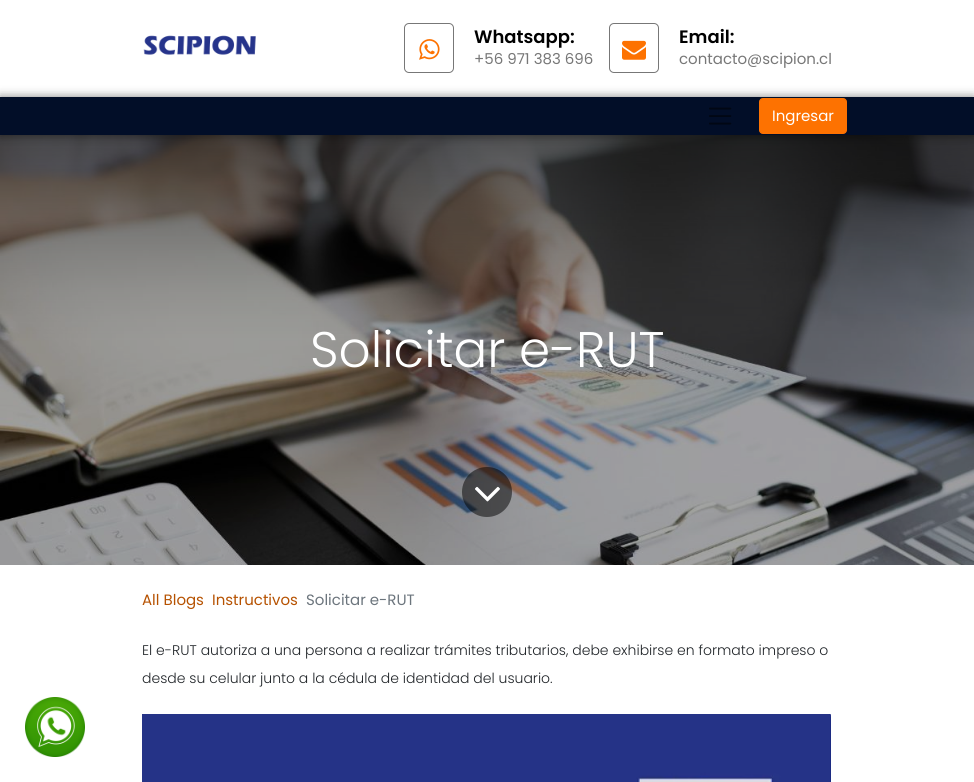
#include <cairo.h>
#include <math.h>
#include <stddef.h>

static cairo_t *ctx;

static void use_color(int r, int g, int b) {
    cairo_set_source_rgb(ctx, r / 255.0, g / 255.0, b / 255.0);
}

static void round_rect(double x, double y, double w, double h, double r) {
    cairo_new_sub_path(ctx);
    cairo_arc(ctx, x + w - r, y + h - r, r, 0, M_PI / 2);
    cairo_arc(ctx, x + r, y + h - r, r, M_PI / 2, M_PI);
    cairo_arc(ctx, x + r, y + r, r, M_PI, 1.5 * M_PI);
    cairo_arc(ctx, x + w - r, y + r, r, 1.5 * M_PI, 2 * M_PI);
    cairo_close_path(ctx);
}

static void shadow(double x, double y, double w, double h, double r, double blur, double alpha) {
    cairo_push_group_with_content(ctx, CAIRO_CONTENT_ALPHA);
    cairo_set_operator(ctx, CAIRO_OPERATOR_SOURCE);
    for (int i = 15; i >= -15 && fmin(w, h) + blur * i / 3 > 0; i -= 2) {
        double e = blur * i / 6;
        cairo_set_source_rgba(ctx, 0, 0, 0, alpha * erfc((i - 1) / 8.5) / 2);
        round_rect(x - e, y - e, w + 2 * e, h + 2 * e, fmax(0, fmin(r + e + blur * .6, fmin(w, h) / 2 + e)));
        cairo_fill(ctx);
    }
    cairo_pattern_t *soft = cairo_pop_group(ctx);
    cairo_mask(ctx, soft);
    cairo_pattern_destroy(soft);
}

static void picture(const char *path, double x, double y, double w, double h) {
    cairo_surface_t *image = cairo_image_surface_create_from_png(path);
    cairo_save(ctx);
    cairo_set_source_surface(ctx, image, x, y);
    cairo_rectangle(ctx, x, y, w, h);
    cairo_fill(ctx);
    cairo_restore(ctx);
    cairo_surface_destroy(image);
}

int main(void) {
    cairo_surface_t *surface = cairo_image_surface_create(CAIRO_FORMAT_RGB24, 974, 782);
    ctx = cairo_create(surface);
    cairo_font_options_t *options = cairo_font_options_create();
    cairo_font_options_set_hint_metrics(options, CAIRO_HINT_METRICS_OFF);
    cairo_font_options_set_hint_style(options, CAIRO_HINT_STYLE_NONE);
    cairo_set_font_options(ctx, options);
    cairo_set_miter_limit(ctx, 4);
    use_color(255, 255, 255);
    cairo_paint(ctx);
    picture("img1.png", 143, 35, 113, 20);
    round_rect(404.5, 23.5, 49, 49, 4.5);
    use_color(119, 119, 119);
    cairo_set_line_width(ctx, 1);
    cairo_stroke(ctx);
    picture("img2.png", 419, 39, 21, 21);
    cairo_select_font_face(ctx, "Poppins SemiBold", CAIRO_FONT_SLANT_NORMAL, CAIRO_FONT_WEIGHT_NORMAL);
    cairo_set_font_size(ctx, 18);
    use_color(0, 0, 0);
    cairo_move_to(ctx, 474, 43);
    cairo_show_text(ctx, "Whatsapp:");
    cairo_select_font_face(ctx, "Poppins", CAIRO_FONT_SLANT_NORMAL, CAIRO_FONT_WEIGHT_NORMAL);
    cairo_set_font_size(ctx, 15);
    use_color(119, 119, 119);
    cairo_move_to(ctx, 474, 64);
    cairo_show_text(ctx, "+56 971 383 696");
    round_rect(609.5, 23.5, 49, 49, 4.5);
    cairo_stroke(ctx);
    picture("img3.png", 622, 40, 24, 20);
    cairo_select_font_face(ctx, "Poppins SemiBold", CAIRO_FONT_SLANT_NORMAL, CAIRO_FONT_WEIGHT_NORMAL);
    cairo_set_font_size(ctx, 18);
    use_color(0, 0, 0);
    cairo_move_to(ctx, 679, 43);
    cairo_show_text(ctx, "Email:");
    cairo_select_font_face(ctx, "Poppins", CAIRO_FONT_SLANT_NORMAL, CAIRO_FONT_WEIGHT_NORMAL);
    cairo_set_font_size(ctx, 15);
    use_color(119, 119, 119);
    cairo_move_to(ctx, 679, 64);
    cairo_show_text(ctx, "contacto@scipion.cl");
    picture("img5.png", 0, 135, 974, 430);
    use_color(0, 0, 0);
    shadow(0, 97, 974, 38, 0, 5, 0.5);
    use_color(2, 14, 40);
    cairo_rectangle(ctx, 0, 97, 974, 38);
    cairo_fill(ctx);
    picture("img4.png", 709, 107, 23, 18);
    use_color(253, 114, 1);
    round_rect(759.5, 98.5, 87, 35, 3.5);
    cairo_fill_preserve(ctx);
    cairo_stroke(ctx);
    use_color(255, 255, 255);
    cairo_move_to(ctx, 772, 121);
    cairo_show_text(ctx, "Ingresar");
    cairo_select_font_face(ctx, "Poppins Light", CAIRO_FONT_SLANT_NORMAL, CAIRO_FONT_WEIGHT_NORMAL);
    cairo_set_font_size(ctx, 50);
    cairo_move_to(ctx, 310, 367);
    cairo_show_text(ctx, "Solicitar e-RUT");
    cairo_set_source_rgba(ctx, 0, 0, 0, 0.5);
    cairo_new_path(ctx);
    cairo_arc(ctx, 487, 492, 25, 0, 2 * M_PI);
    cairo_fill(ctx);
    picture("img6.png", 475, 486, 25, 16);
    cairo_select_font_face(ctx, "Poppins", CAIRO_FONT_SLANT_NORMAL, CAIRO_FONT_WEIGHT_NORMAL);
    cairo_set_font_size(ctx, 15);
    use_color(182, 82, 1);
    cairo_move_to(ctx, 142, 605);
    cairo_show_text(ctx, "All Blogs");
    cairo_move_to(ctx, 212, 605);
    cairo_show_text(ctx, "Instructivos");
    use_color(108, 117, 125);
    cairo_move_to(ctx, 306, 605);
    cairo_show_text(ctx, "Solicitar e-RUT");
    cairo_select_font_face(ctx, "Poppins Light", CAIRO_FONT_SLANT_NORMAL, CAIRO_FONT_WEIGHT_NORMAL);
    cairo_set_font_size(ctx, 14);
    use_color(33, 37, 41);
    cairo_move_to(ctx, 142, 655);
    cairo_show_text(ctx, "El e-RUT autoriza a una persona a realizar trámites tributarios, debe exhibirse en formato impreso o");
    cairo_move_to(ctx, 142, 683);
    cairo_show_text(ctx, "desde su celular junto a la cédula de identidad del usuario.");
    picture("img7.png", 142, 714, 689, 68);
    picture("img8.png", 25, 697, 60, 60);
    cairo_surface_write_to_png(surface, "result.png");
    cairo_font_options_destroy(options);
    cairo_destroy(ctx);
    cairo_surface_destroy(surface);
    return 0;
}
